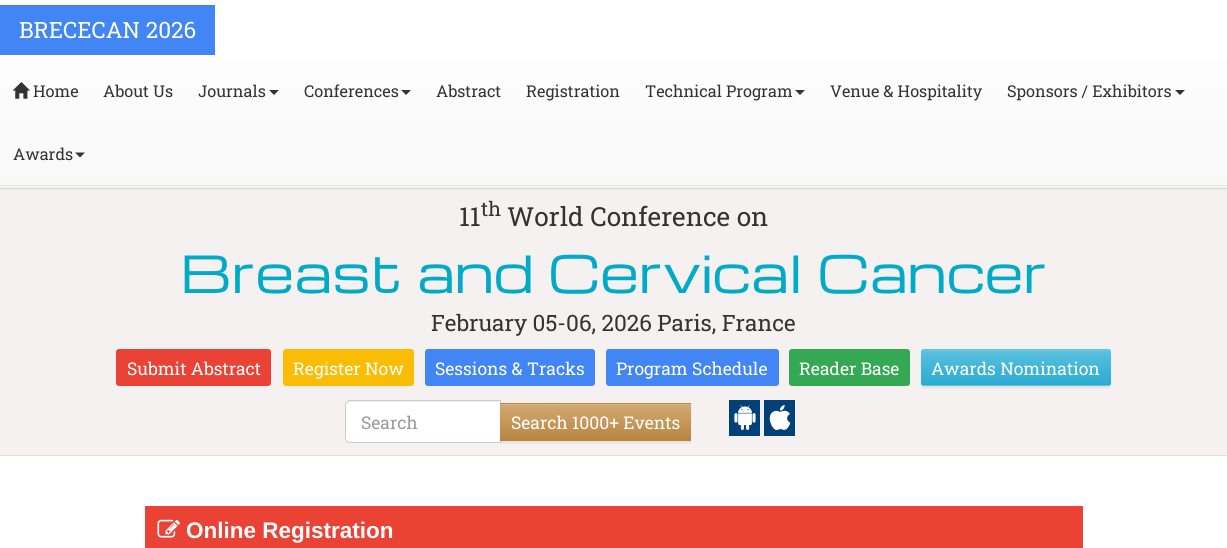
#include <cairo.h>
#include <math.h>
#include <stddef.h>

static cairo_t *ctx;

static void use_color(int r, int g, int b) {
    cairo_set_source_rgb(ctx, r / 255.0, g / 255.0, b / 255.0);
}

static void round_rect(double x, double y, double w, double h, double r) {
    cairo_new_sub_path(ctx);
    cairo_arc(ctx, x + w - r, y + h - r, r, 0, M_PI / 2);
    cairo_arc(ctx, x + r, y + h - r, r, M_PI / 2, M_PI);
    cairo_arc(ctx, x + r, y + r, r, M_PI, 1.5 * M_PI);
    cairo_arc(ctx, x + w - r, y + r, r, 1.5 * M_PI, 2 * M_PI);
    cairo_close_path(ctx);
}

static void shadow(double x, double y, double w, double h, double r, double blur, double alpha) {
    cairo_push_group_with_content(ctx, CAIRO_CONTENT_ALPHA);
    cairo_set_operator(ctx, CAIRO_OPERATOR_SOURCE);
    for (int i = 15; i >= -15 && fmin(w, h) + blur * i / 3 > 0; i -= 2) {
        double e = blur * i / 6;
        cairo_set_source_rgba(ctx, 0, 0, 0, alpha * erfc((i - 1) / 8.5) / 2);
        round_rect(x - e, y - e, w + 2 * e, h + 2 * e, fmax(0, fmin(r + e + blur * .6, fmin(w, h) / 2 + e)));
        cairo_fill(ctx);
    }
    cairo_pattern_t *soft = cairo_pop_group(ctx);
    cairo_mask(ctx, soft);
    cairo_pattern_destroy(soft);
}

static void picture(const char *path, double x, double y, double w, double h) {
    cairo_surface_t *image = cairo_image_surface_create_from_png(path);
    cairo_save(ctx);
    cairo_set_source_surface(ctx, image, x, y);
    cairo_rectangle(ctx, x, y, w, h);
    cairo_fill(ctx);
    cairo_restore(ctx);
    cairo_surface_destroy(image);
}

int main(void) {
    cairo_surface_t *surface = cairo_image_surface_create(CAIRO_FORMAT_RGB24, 1227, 548);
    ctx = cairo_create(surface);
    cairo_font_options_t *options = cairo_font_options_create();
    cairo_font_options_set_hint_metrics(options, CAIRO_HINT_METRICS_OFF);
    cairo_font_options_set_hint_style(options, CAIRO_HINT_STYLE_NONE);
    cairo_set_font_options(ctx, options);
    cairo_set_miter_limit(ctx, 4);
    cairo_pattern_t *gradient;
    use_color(255, 255, 255);
    cairo_paint(ctx);
    use_color(245, 241, 240);
    cairo_rectangle(ctx, 0, 189, 1227, 266);
    cairo_fill(ctx);
    use_color(230, 221, 219);
    cairo_rectangle(ctx, 0, 188, 1227, 1);
    cairo_fill(ctx);
    use_color(0, 0, 0);
    shadow(0, 1, 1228, 187, 0, 3, 0.07);
    gradient = cairo_pattern_create_linear(614, 0, 614, 185);
    cairo_pattern_add_color_stop_rgba(gradient, 0, 1, 1, 1, 1);
    cairo_pattern_add_color_stop_rgba(gradient, 1, 0.973, 0.973, 0.973, 1);
    cairo_set_source(ctx, gradient);
    cairo_pattern_destroy(gradient);
    cairo_rectangle(ctx, 0, 60, 1227, 125);
    cairo_fill(ctx);
    use_color(231, 231, 231);
    cairo_rectangle(ctx, 0, 185, 1227, 1);
    cairo_fill(ctx);
    use_color(255, 255, 255);
    cairo_rectangle(ctx, 0, 0, 1227, 60);
    cairo_fill(ctx);
    use_color(66, 133, 244);
    cairo_rectangle(ctx, 0, 5, 215, 50);
    cairo_fill(ctx);
    cairo_select_font_face(ctx, "Roboto Slab", CAIRO_FONT_SLANT_NORMAL, CAIRO_FONT_WEIGHT_NORMAL);
    cairo_set_font_size(ctx, 22.5);
    use_color(255, 255, 255);
    cairo_move_to(ctx, 19, 38);
    cairo_show_text(ctx, "BRECECAN 2026");
    picture("img1.png", 12, 82, 18, 17);
    cairo_set_font_size(ctx, 16.25);
    use_color(51, 51, 51);
    cairo_move_to(ctx, 33, 97);
    cairo_show_text(ctx, "Home");
    cairo_move_to(ctx, 103, 97);
    cairo_show_text(ctx, "About Us");
    cairo_move_to(ctx, 198, 97);
    cairo_show_text(ctx, "Journals");
    cairo_new_path(ctx);
    cairo_move_to(ctx, 269, 90);
    cairo_line_to(ctx, 279, 90);
    cairo_line_to(ctx, 274, 95);
    cairo_close_path(ctx);
    cairo_fill(ctx);
    cairo_move_to(ctx, 304, 97);
    cairo_show_text(ctx, "Conferences");
    cairo_new_path(ctx);
    cairo_move_to(ctx, 401, 90);
    cairo_line_to(ctx, 411, 90);
    cairo_line_to(ctx, 406, 95);
    cairo_close_path(ctx);
    cairo_fill(ctx);
    cairo_move_to(ctx, 436, 97);
    cairo_show_text(ctx, "Abstract");
    cairo_move_to(ctx, 526, 97);
    cairo_show_text(ctx, "Registration");
    cairo_move_to(ctx, 645, 97);
    cairo_show_text(ctx, "Technical Program");
    cairo_new_path(ctx);
    cairo_move_to(ctx, 795, 90);
    cairo_line_to(ctx, 805, 90);
    cairo_line_to(ctx, 800, 95);
    cairo_close_path(ctx);
    cairo_fill(ctx);
    cairo_move_to(ctx, 830, 97);
    cairo_show_text(ctx, "Venue & Hospitality");
    cairo_move_to(ctx, 1007, 97);
    cairo_show_text(ctx, "Sponsors / Exhibitors");
    cairo_new_path(ctx);
    cairo_move_to(ctx, 1175, 90);
    cairo_line_to(ctx, 1185, 90);
    cairo_line_to(ctx, 1180, 95);
    cairo_close_path(ctx);
    cairo_fill(ctx);
    cairo_move_to(ctx, 13, 160);
    cairo_show_text(ctx, "Awards");
    cairo_new_path(ctx);
    cairo_move_to(ctx, 75, 152.5);
    cairo_line_to(ctx, 85, 152.5);
    cairo_line_to(ctx, 80, 157.5);
    cairo_close_path(ctx);
    cairo_fill(ctx);
    use_color(230, 221, 219);
    cairo_rectangle(ctx, 0, 455, 1227, 1);
    cairo_fill(ctx);
    cairo_set_font_size(ctx, 26.25);
    use_color(51, 51, 51);
    cairo_move_to(ctx, 459, 226);
    cairo_show_text(ctx, "11");
    cairo_set_font_size(ctx, 20);
    cairo_move_to(ctx, 481, 216);
    cairo_show_text(ctx, "th");
    cairo_set_font_size(ctx, 26.25);
    cairo_move_to(ctx, 507, 226);
    cairo_show_text(ctx, "World Conference on");
    cairo_select_font_face(ctx, "Michroma", CAIRO_FONT_SLANT_NORMAL, CAIRO_FONT_WEIGHT_NORMAL);
    cairo_set_font_size(ctx, 50);
    use_color(1, 170, 199);
    cairo_move_to(ctx, 180, 293);
    cairo_show_text(ctx, "Breast and Cervical Cancer");
    cairo_select_font_face(ctx, "Roboto Slab", CAIRO_FONT_SLANT_NORMAL, CAIRO_FONT_WEIGHT_NORMAL);
    cairo_set_font_size(ctx, 22.5);
    use_color(51, 51, 51);
    cairo_move_to(ctx, 431, 331);
    cairo_show_text(ctx, "February 05-06, 2026 Paris, France");
    use_color(234, 67, 53);
    round_rect(116, 349, 155, 37, 3);
    cairo_fill(ctx);
    cairo_set_font_size(ctx, 17.5);
    use_color(255, 255, 255);
    cairo_move_to(ctx, 127, 375);
    cairo_show_text(ctx, "Submit Abstract");
    use_color(251, 188, 5);
    round_rect(283, 349, 131, 37, 3);
    cairo_fill(ctx);
    use_color(255, 255, 255);
    cairo_move_to(ctx, 293, 375);
    cairo_show_text(ctx, "Register Now");
    use_color(66, 133, 244);
    round_rect(425, 349, 170, 37, 3);
    cairo_fill(ctx);
    use_color(255, 255, 255);
    cairo_move_to(ctx, 435, 375);
    cairo_show_text(ctx, "Sessions & Tracks");
    use_color(66, 133, 244);
    round_rect(606, 349, 173, 37, 3);
    cairo_fill(ctx);
    use_color(255, 255, 255);
    cairo_move_to(ctx, 616, 375);
    cairo_show_text(ctx, "Program Schedule");
    use_color(52, 168, 83);
    round_rect(789, 349, 121, 37, 3);
    cairo_fill(ctx);
    use_color(255, 255, 255);
    cairo_move_to(ctx, 799, 375);
    cairo_show_text(ctx, "Reader Base");
    use_color(0, 0, 0);
    shadow(921, 350, 190, 38, 3, 0.5, 0.07);
    use_color(91, 192, 222);
    round_rect(921, 349, 190, 37, 3);
    cairo_fill(ctx);
    cairo_save(ctx);
    round_rect(921, 349, 190, 37, 3);
    cairo_clip(ctx);
    gradient = cairo_pattern_create_linear(1016, 350, 1016, 385);
    cairo_pattern_add_color_stop_rgba(gradient, 0, 0.357, 0.753, 0.871, 1);
    cairo_pattern_add_color_stop_rgba(gradient, 1, 0.165, 0.671, 0.824, 1);
    cairo_set_source(ctx, gradient);
    cairo_pattern_destroy(gradient);
    cairo_rectangle(ctx, 921, 350, 190, 35);
    cairo_fill(ctx);
    cairo_restore(ctx);
    use_color(115, 201, 227);
    cairo_new_path(ctx);
    cairo_move_to(ctx, 924, 351);
    cairo_line_to(ctx, 1108, 351);
    cairo_curve_to(ctx, 1109, 351, 1110, 352, 1110, 353);
    cairo_line_to(ctx, 1110, 352);
    cairo_curve_to(ctx, 1110, 351, 1109, 350, 1108, 350);
    cairo_line_to(ctx, 925, 350);
    cairo_curve_to(ctx, 924, 350, 923, 351, 923, 351);
    cairo_close_path(ctx);
    cairo_fill(ctx);
    use_color(255, 255, 255);
    cairo_move_to(ctx, 931, 375);
    cairo_show_text(ctx, "Awards Nomination");
    cairo_new_path(ctx);
    cairo_move_to(ctx, 350, 400);
    cairo_line_to(ctx, 501, 400);
    cairo_line_to(ctx, 501, 443);
    cairo_line_to(ctx, 350, 443);
    cairo_curve_to(ctx, 347, 443, 345, 441, 345, 438);
    cairo_line_to(ctx, 345, 405);
    cairo_curve_to(ctx, 345, 402, 347, 400, 350, 400);
    cairo_close_path(ctx);
    cairo_fill(ctx);
    use_color(236, 236, 236);
    cairo_new_path(ctx);
    cairo_move_to(ctx, 350, 402);
    cairo_line_to(ctx, 500, 402);
    cairo_line_to(ctx, 500, 401);
    cairo_line_to(ctx, 350, 401);
    cairo_curve_to(ctx, 347, 401, 346, 403, 346, 406);
    cairo_curve_to(ctx, 346, 404, 348, 402, 350, 402);
    cairo_close_path(ctx);
    cairo_fill(ctx);
    cairo_new_path(ctx);
    cairo_move_to(ctx, 350, 400.5);
    cairo_line_to(ctx, 500.5, 400.5);
    cairo_line_to(ctx, 500.5, 442.5);
    cairo_line_to(ctx, 350, 442.5);
    cairo_curve_to(ctx, 347.5, 442.5, 345.5, 440.5, 345.5, 438);
    cairo_line_to(ctx, 345.5, 405);
    cairo_curve_to(ctx, 345.5, 402.5, 347.5, 400.5, 350, 400.5);
    cairo_close_path(ctx);
    use_color(204, 204, 204);
    cairo_set_line_width(ctx, 1);
    cairo_stroke(ctx);
    use_color(153, 153, 153);
    cairo_move_to(ctx, 361, 429);
    cairo_show_text(ctx, "Search");
    use_color(0, 0, 0);
    shadow(500, 404, 191, 39, 0, 0.5, 0.07);
    use_color(185, 134, 66);
    cairo_rectangle(ctx, 500, 403, 191, 38);
    cairo_fill(ctx);
    gradient = cairo_pattern_create_linear(596, 404, 596, 440);
    cairo_pattern_add_color_stop_rgba(gradient, 0, 0.824, 0.663, 0.451, 1);
    cairo_pattern_add_color_stop_rgba(gradient, 1, 0.725, 0.525, 0.259, 1);
    cairo_set_source(ctx, gradient);
    cairo_pattern_destroy(gradient);
    cairo_rectangle(ctx, 500, 404, 191, 34);
    cairo_fill(ctx);
    use_color(217, 182, 135);
    cairo_rectangle(ctx, 501, 404, 189, 1);
    cairo_fill(ctx);
    use_color(255, 255, 255);
    cairo_move_to(ctx, 511, 429);
    cairo_show_text(ctx, "Search 1000+ Events");
    use_color(0, 65, 120);
    cairo_rectangle(ctx, 729, 400, 31, 36);
    cairo_fill(ctx);
    picture("img2.png", 734, 405, 22, 25);
    cairo_rectangle(ctx, 764, 400, 31, 36);
    cairo_fill(ctx);
    picture("img3.png", 769, 405, 22, 25);
    use_color(234, 67, 53);
    cairo_rectangle(ctx, 145, 506, 938, 42);
    cairo_fill(ctx);
    picture("img4.png", 157, 519, 23, 19);
    cairo_select_font_face(ctx, "Liberation Sans", CAIRO_FONT_SLANT_NORMAL, CAIRO_FONT_WEIGHT_BOLD);
    cairo_set_font_size(ctx, 22.5);
    use_color(255, 255, 255);
    cairo_move_to(ctx, 186, 538);
    cairo_show_text(ctx, "Online Registration");
    cairo_surface_write_to_png(surface, "result.png");
    cairo_font_options_destroy(options);
    cairo_destroy(ctx);
    cairo_surface_destroy(surface);
    return 0;
}
